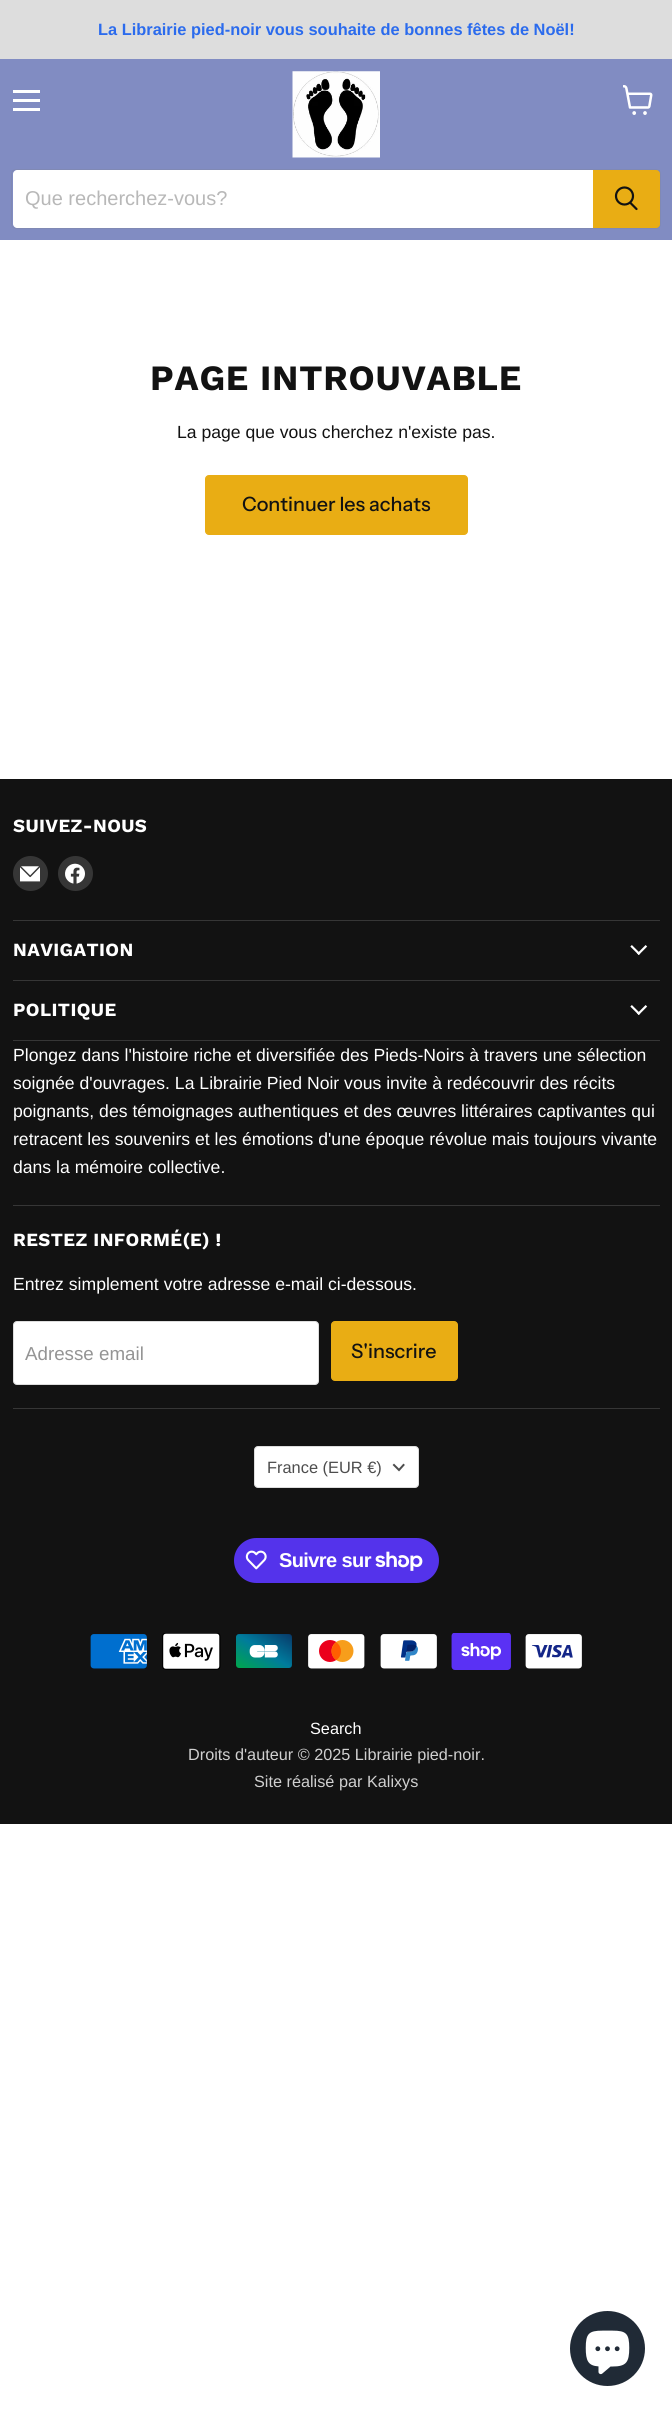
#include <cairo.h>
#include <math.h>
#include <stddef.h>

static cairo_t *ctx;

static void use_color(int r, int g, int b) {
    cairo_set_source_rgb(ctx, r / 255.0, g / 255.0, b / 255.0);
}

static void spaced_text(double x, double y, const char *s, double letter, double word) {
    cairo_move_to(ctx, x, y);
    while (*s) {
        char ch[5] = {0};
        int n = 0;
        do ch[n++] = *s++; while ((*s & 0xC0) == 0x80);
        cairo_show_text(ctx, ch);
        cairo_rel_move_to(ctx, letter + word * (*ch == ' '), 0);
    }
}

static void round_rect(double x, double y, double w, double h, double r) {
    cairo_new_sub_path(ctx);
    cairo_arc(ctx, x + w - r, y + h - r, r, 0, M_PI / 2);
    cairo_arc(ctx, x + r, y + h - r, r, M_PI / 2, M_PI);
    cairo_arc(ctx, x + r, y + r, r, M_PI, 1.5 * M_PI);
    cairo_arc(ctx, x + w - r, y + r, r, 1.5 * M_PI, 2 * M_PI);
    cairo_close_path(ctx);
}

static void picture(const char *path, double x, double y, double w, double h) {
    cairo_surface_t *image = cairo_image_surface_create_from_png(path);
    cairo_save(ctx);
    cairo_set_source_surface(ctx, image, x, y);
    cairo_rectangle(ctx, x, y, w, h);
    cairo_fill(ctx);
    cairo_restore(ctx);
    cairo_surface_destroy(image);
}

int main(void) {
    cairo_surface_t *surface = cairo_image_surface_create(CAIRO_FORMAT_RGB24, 672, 2412);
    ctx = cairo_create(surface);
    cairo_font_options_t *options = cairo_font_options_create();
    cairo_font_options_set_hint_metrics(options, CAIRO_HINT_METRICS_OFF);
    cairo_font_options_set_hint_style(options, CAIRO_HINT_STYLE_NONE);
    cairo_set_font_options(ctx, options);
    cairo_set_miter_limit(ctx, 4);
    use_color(255, 255, 255);
    cairo_paint(ctx);
    use_color(221, 221, 221);
    cairo_rectangle(ctx, 0, 0, 672, 59);
    cairo_fill(ctx);
    cairo_select_font_face(ctx, "Liberation Sans", CAIRO_FONT_SLANT_NORMAL, CAIRO_FONT_WEIGHT_BOLD);
    cairo_set_font_size(ctx, 16.4);
    use_color(43, 107, 237);
    cairo_move_to(ctx, 98, 35);
    cairo_show_text(ctx, "La Librairie pied-noir vous souhaite de bonnes fêtes de Noël!");
    use_color(129, 140, 194);
    cairo_rectangle(ctx, 0, 59, 672, 181);
    cairo_fill(ctx);
    use_color(255, 255, 255);
    cairo_rectangle(ctx, 13, 90, 27, 3);
    cairo_fill(ctx);
    cairo_rectangle(ctx, 13, 99, 27, 3);
    cairo_fill(ctx);
    cairo_rectangle(ctx, 13, 108, 27, 3);
    cairo_fill(ctx);
    picture("img1.png", 623, 85, 30, 30);
    picture("img2.png", 292, 71, 88, 87);
    round_rect(11.5, 169.5, 649, 59, 4.5);
    cairo_set_source_rgba(ctx, 0.502, 0.502, 0.502, 0.2);
    cairo_set_line_width(ctx, 1);
    cairo_stroke(ctx);
    use_color(255, 255, 255);
    cairo_new_path(ctx);
    cairo_move_to(ctx, 17, 170);
    cairo_line_to(ctx, 593, 170);
    cairo_line_to(ctx, 593, 228);
    cairo_line_to(ctx, 17, 228);
    cairo_curve_to(ctx, 15, 228, 13, 226, 13, 224);
    cairo_line_to(ctx, 13, 174);
    cairo_curve_to(ctx, 13, 172, 15, 170, 17, 170);
    cairo_close_path(ctx);
    cairo_fill(ctx);
    cairo_select_font_face(ctx, "Liberation Sans", CAIRO_FONT_SLANT_NORMAL, CAIRO_FONT_WEIGHT_NORMAL);
    cairo_set_font_size(ctx, 20);
    use_color(184, 184, 184);
    cairo_move_to(ctx, 25, 205);
    cairo_show_text(ctx, "Que recherchez-vous?");
    use_color(233, 173, 20);
    cairo_new_path(ctx);
    cairo_move_to(ctx, 593.5, 170.5);
    cairo_line_to(ctx, 656, 170.5);
    cairo_curve_to(ctx, 658, 170.5, 659.5, 172, 659.5, 174);
    cairo_line_to(ctx, 659.5, 224);
    cairo_curve_to(ctx, 659.5, 226, 658, 227.5, 656, 227.5);
    cairo_line_to(ctx, 593.5, 227.5);
    cairo_close_path(ctx);
    cairo_fill_preserve(ctx);
    cairo_stroke(ctx);
    cairo_new_path(ctx);
    cairo_move_to(ctx, 636.5, 209);
    cairo_line_to(ctx, 630.5, 203);
    use_color(18, 18, 18);
    cairo_set_line_width(ctx, 2.2);
    cairo_set_line_cap(ctx, CAIRO_LINE_CAP_ROUND);
    cairo_stroke(ctx);
    cairo_arc(ctx, 624.5, 196, 8.5, 0, 2 * M_PI);
    cairo_set_line_cap(ctx, CAIRO_LINE_CAP_BUTT);
    cairo_stroke(ctx);
    cairo_select_font_face(ctx, "Work Sans", CAIRO_FONT_SLANT_NORMAL, CAIRO_FONT_WEIGHT_BOLD);
    cairo_set_font_size(ctx, 35.6);
    spaced_text(150, 390, "PAGE INTROUVABLE", 0.75, 0);
    cairo_select_font_face(ctx, "Liberation Sans", CAIRO_FONT_SLANT_NORMAL, CAIRO_FONT_WEIGHT_NORMAL);
    cairo_set_font_size(ctx, 17.6);
    cairo_move_to(ctx, 177, 438);
    cairo_show_text(ctx, "La page que vous cherchez n'existe pas.");
    use_color(233, 173, 20);
    round_rect(205.5, 475.5, 262, 59, 3.5);
    cairo_fill_preserve(ctx);
    cairo_set_line_width(ctx, 1);
    cairo_stroke(ctx);
    cairo_select_font_face(ctx, "Instrument Sans Medium", CAIRO_FONT_SLANT_NORMAL, CAIRO_FONT_WEIGHT_NORMAL);
    cairo_set_font_size(ctx, 19.75);
    use_color(18, 18, 18);
    cairo_move_to(ctx, 242, 511);
    cairo_show_text(ctx, "Continuer les achats");
    cairo_rectangle(ctx, 0, 779, 672, 1045);
    cairo_fill(ctx);
    use_color(54, 54, 54);
    cairo_rectangle(ctx, 13, 920, 647, 1);
    cairo_fill(ctx);
    cairo_select_font_face(ctx, "Work Sans", CAIRO_FONT_SLANT_NORMAL, CAIRO_FONT_WEIGHT_BOLD);
    cairo_set_font_size(ctx, 18.6);
    use_color(255, 255, 255);
    spaced_text(13, 832, "SUIVEZ-NOUS", 0.4, 0);
    use_color(54, 54, 54);
    cairo_new_path(ctx);
    cairo_arc(ctx, 30.5, 873.5, 17.5, 0, 2 * M_PI);
    cairo_fill(ctx);
    picture("img3.png", 20, 866, 20, 16);
    cairo_arc(ctx, 75.5, 873.5, 17.5, 0, 2 * M_PI);
    cairo_fill(ctx);
    picture("img4.png", 65, 863, 20, 21);
    cairo_rectangle(ctx, 13, 980, 647, 1);
    cairo_fill(ctx);
    use_color(255, 255, 255);
    spaced_text(13, 956, "NAVIGATION", 0.4, 0);
    picture("img5.png", 630, 945, 18, 10);
    use_color(54, 54, 54);
    cairo_rectangle(ctx, 13, 1040, 647, 1);
    cairo_fill(ctx);
    use_color(255, 255, 255);
    spaced_text(13, 1016, "POLITIQUE", 0.4, 0);
    picture("img5.png", 630, 1005, 18, 10);
    use_color(54, 54, 54);
    cairo_rectangle(ctx, 13, 1205, 647, 1);
    cairo_fill(ctx);
    cairo_select_font_face(ctx, "Liberation Sans", CAIRO_FONT_SLANT_NORMAL, CAIRO_FONT_WEIGHT_NORMAL);
    cairo_set_font_size(ctx, 17.6);
    use_color(255, 255, 255);
    cairo_move_to(ctx, 13, 1061);
    cairo_show_text(ctx, "Plongez dans l'histoire riche et diversifiée des Pieds-Noirs à travers une sélection");
    cairo_move_to(ctx, 13, 1089);
    cairo_show_text(ctx, "soignée d'ouvrages. La Librairie Pied Noir vous invite à redécouvrir des récits");
    cairo_move_to(ctx, 13, 1117);
    cairo_show_text(ctx, "poignants, des témoignages authentiques et des œuvres littéraires captivantes qui");
    cairo_move_to(ctx, 13, 1145);
    cairo_show_text(ctx, "retracent les souvenirs et les émotions d'une époque révolue mais toujours vivante");
    cairo_move_to(ctx, 13, 1173);
    cairo_show_text(ctx, "dans la mémoire collective.");
    use_color(54, 54, 54);
    cairo_rectangle(ctx, 13, 1408, 647, 1);
    cairo_fill(ctx);
    cairo_select_font_face(ctx, "Work Sans", CAIRO_FONT_SLANT_NORMAL, CAIRO_FONT_WEIGHT_BOLD);
    cairo_set_font_size(ctx, 18.6);
    use_color(255, 255, 255);
    spaced_text(13, 1246, "RESTEZ INFORMÉ(E) !", 0.4, 0);
    cairo_select_font_face(ctx, "Liberation Sans", CAIRO_FONT_SLANT_NORMAL, CAIRO_FONT_WEIGHT_NORMAL);
    cairo_set_font_size(ctx, 17.6);
    cairo_move_to(ctx, 13, 1290);
    cairo_show_text(ctx, "Entrez simplement votre adresse e-mail ci-dessous.");
    round_rect(13.5, 1321.5, 305, 63, 3.5);
    cairo_fill_preserve(ctx);
    use_color(221, 221, 221);
    cairo_stroke(ctx);
    cairo_set_font_size(ctx, 18.75);
    use_color(148, 148, 148);
    cairo_move_to(ctx, 25, 1360);
    cairo_show_text(ctx, "Adresse email");
    use_color(233, 173, 20);
    round_rect(331.5, 1321.5, 126, 59, 3.5);
    cairo_fill_preserve(ctx);
    cairo_stroke(ctx);
    cairo_select_font_face(ctx, "Instrument Sans Medium", CAIRO_FONT_SLANT_NORMAL, CAIRO_FONT_WEIGHT_NORMAL);
    cairo_set_font_size(ctx, 19.75);
    use_color(18, 18, 18);
    cairo_move_to(ctx, 351, 1358);
    cairo_show_text(ctx, "S'inscrire");
    use_color(255, 255, 255);
    round_rect(254.5, 1446.5, 164, 41, 3.5);
    cairo_fill_preserve(ctx);
    use_color(221, 221, 221);
    cairo_stroke(ctx);
    cairo_select_font_face(ctx, "Liberation Sans", CAIRO_FONT_SLANT_NORMAL, CAIRO_FONT_WEIGHT_NORMAL);
    cairo_set_font_size(ctx, 16.4);
    use_color(77, 77, 77);
    cairo_move_to(ctx, 267, 1473);
    cairo_show_text(ctx, "France (EUR €)");
    cairo_new_path(ctx);
    cairo_move_to(ctx, 399, 1470);
    cairo_line_to(ctx, 403.5, 1465);
    cairo_move_to(ctx, 399, 1470);
    cairo_line_to(ctx, 394, 1465);
    cairo_set_line_width(ctx, 2);
    cairo_set_line_cap(ctx, CAIRO_LINE_CAP_SQUARE);
    cairo_stroke(ctx);
    use_color(84, 51, 235);
    round_rect(234, 1538, 205, 45, 22.5);
    cairo_fill(ctx);
    picture("img6.png", 245, 1550, 22, 20);
    cairo_select_font_face(ctx, "Liberation Sans", CAIRO_FONT_SLANT_NORMAL, CAIRO_FONT_WEIGHT_BOLD);
    cairo_set_font_size(ctx, 20);
    use_color(255, 255, 255);
    spaced_text(279, 1567, "Suivre sur", -0.6, 0);
    picture("img7.png", 375, 1551, 48, 20);
    picture("img8.png", 90, 1634, 57, 35);
    picture("img9.png", 162, 1633, 59, 37);
    picture("img10.png", 236, 1634, 56, 34);
    picture("img11.png", 308, 1634, 57, 35);
    picture("img12.png", 380, 1634, 57, 35);
    picture("img13.png", 451, 1633, 60, 37);
    picture("img14.png", 525, 1634, 57, 35);
    cairo_select_font_face(ctx, "Liberation Sans", CAIRO_FONT_SLANT_NORMAL, CAIRO_FONT_WEIGHT_NORMAL);
    cairo_set_font_size(ctx, 16.25);
    cairo_move_to(ctx, 310, 1734);
    cairo_show_text(ctx, "Search");
    use_color(208, 208, 208);
    cairo_move_to(ctx, 188, 1760);
    cairo_show_text(ctx, "Droits d'auteur © 2025 Librairie pied-noir.");
    cairo_move_to(ctx, 254, 1787);
    cairo_show_text(ctx, "Site réalisé par Kalixys");
    use_color(32, 42, 54);
    cairo_new_path(ctx);
    cairo_arc(ctx, 607.5, 2348.5, 37.5, 0, 2 * M_PI);
    cairo_fill(ctx);
    picture("img15.png", 585, 2330, 45, 45);
    cairo_surface_write_to_png(surface, "result.png");
    cairo_font_options_destroy(options);
    cairo_destroy(ctx);
    cairo_surface_destroy(surface);
    return 0;
}
